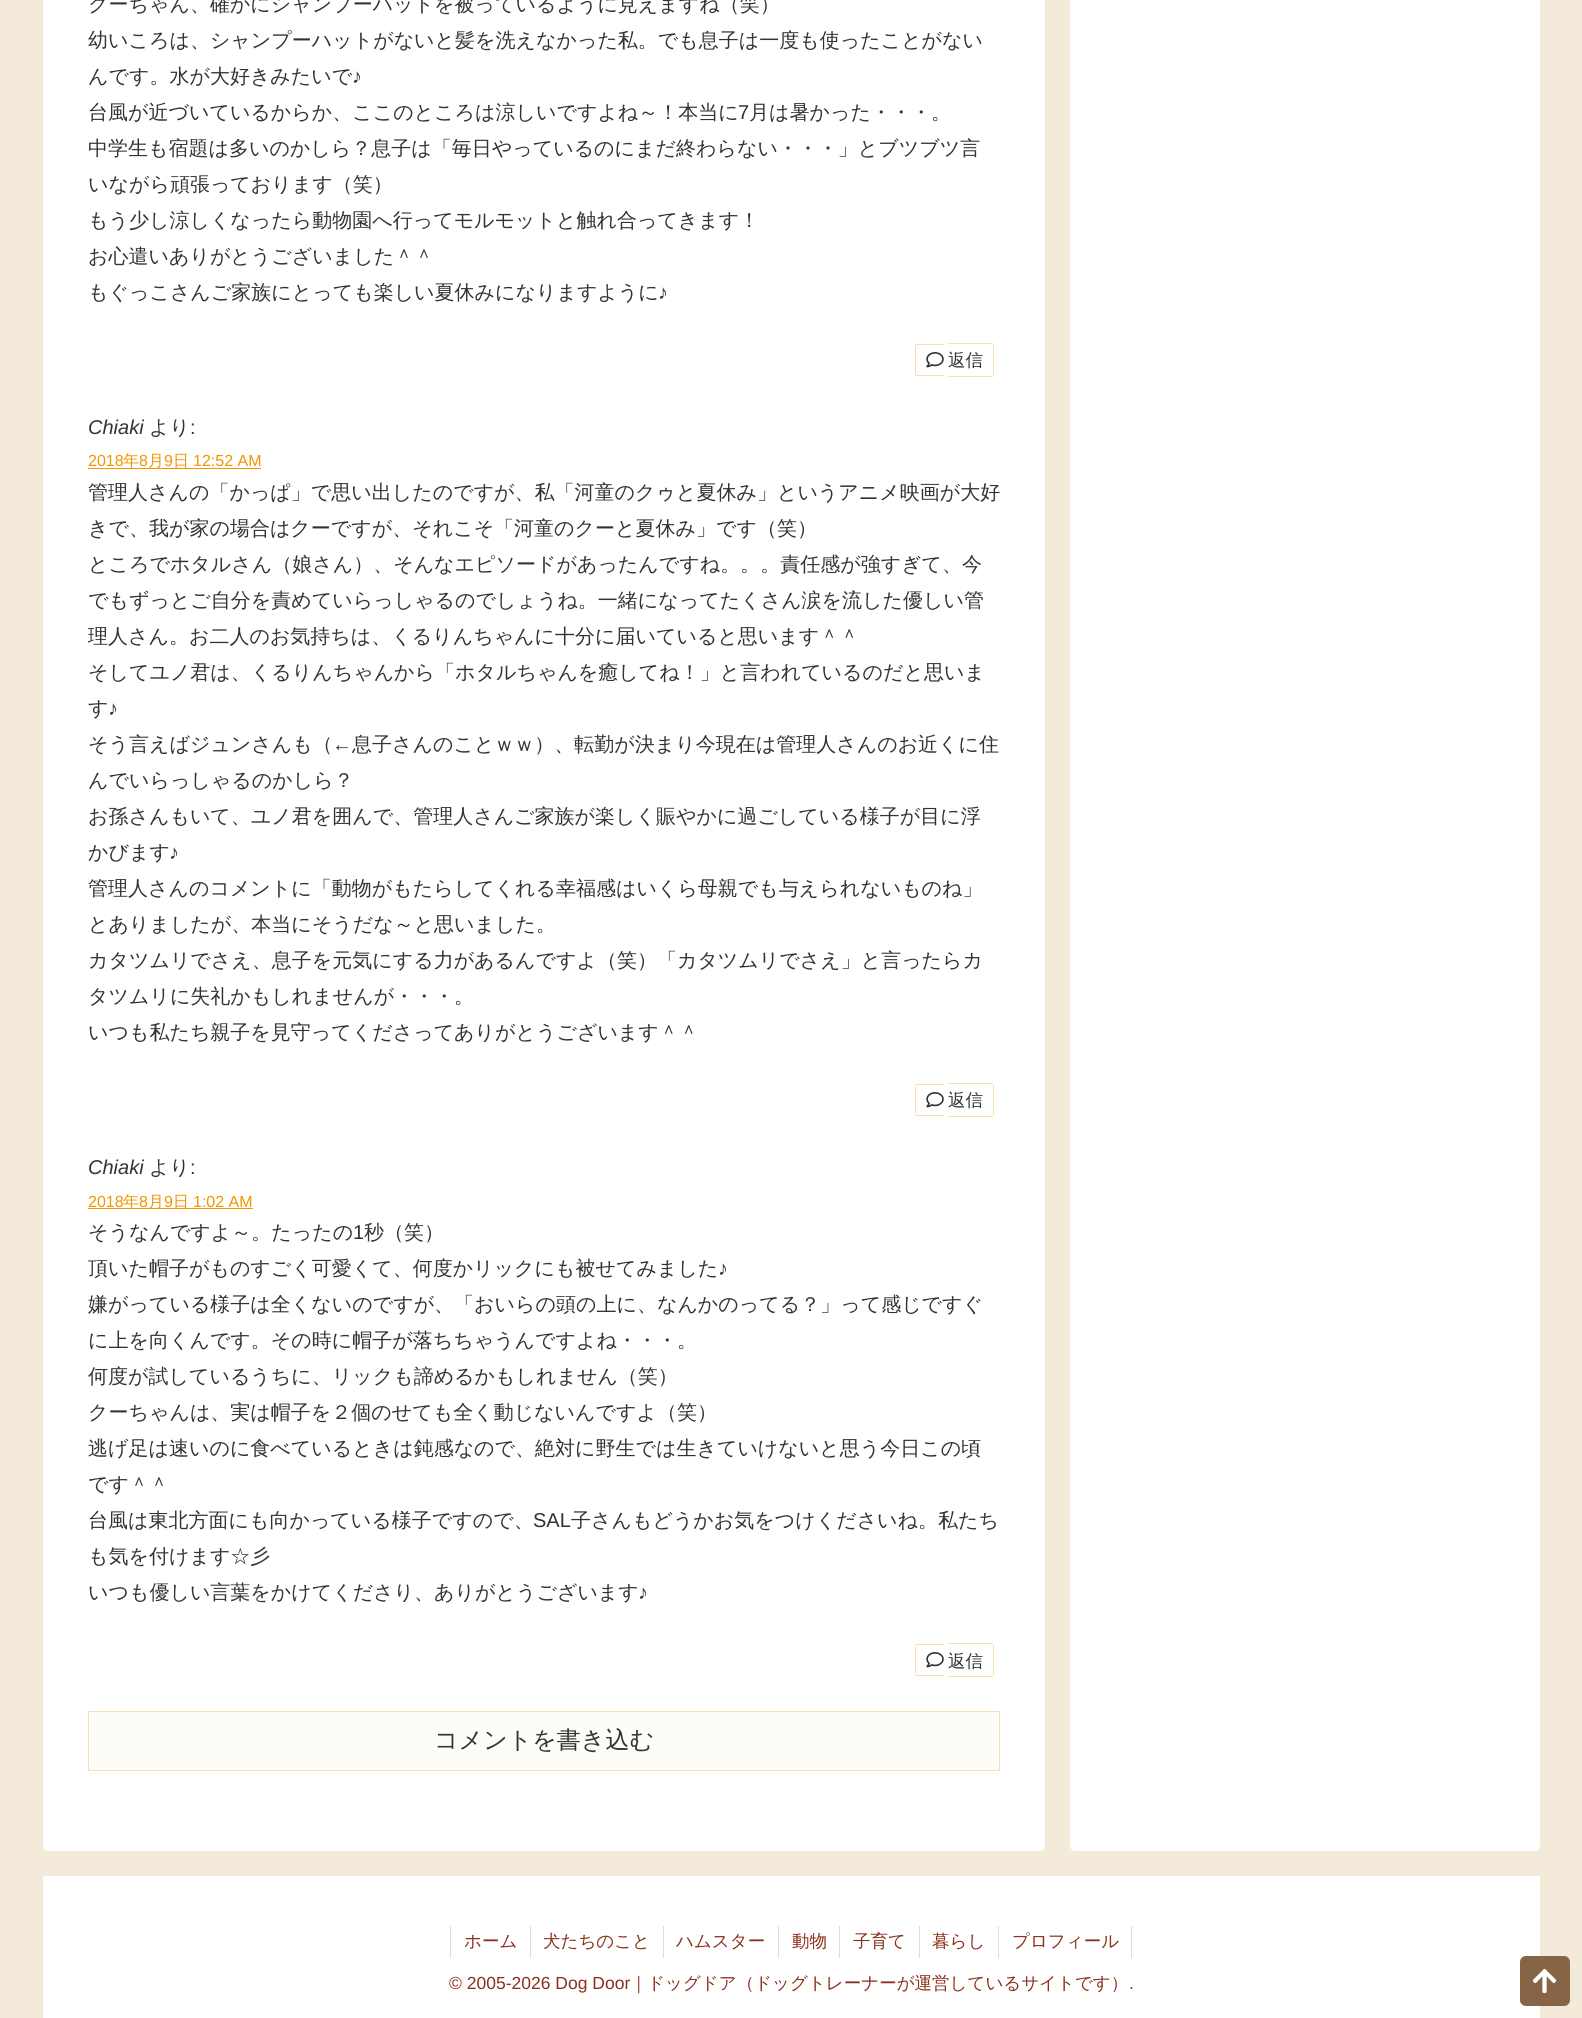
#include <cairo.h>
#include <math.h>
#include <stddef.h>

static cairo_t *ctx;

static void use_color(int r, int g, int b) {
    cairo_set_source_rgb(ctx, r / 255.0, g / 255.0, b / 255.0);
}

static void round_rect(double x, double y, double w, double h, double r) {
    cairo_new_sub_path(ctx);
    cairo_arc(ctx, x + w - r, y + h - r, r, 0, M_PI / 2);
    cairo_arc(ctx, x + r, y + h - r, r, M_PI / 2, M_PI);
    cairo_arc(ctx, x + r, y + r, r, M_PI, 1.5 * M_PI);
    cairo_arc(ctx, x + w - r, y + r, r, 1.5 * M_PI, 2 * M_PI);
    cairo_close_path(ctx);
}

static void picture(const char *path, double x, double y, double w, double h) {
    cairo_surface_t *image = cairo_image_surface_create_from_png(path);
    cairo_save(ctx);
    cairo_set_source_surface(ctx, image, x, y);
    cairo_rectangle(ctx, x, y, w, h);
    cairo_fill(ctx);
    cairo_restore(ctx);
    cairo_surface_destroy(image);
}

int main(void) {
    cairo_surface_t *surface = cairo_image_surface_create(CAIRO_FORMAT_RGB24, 1582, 2018);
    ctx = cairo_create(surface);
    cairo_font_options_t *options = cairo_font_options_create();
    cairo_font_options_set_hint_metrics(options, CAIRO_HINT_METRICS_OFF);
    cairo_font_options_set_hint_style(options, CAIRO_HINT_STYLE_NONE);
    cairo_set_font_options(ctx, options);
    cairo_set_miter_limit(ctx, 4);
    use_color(243, 234, 217);
    cairo_paint(ctx);
    use_color(255, 255, 255);
    round_rect(43, -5, 1002, 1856, 5);
    cairo_fill(ctx);
    cairo_select_font_face(ctx, "WenQuanYi Zen Hei Medium", CAIRO_FONT_SLANT_NORMAL, CAIRO_FONT_WEIGHT_NORMAL);
    cairo_set_font_size(ctx, 20);
    use_color(51, 51, 51);
    cairo_move_to(ctx, 88, 11);
    cairo_show_text(ctx, "クーちゃん、確かにシャンプーハットを被っているように見えますね（笑）");
    cairo_move_to(ctx, 88, 47);
    cairo_show_text(ctx, "幼いころは、シャンプーハットがないと髪を洗えなかった私。でも息子は一度も使ったことがない");
    cairo_move_to(ctx, 88, 83);
    cairo_show_text(ctx, "んです。水が大好きみたいで");
    cairo_select_font_face(ctx, "Liberation Sans", CAIRO_FONT_SLANT_NORMAL, CAIRO_FONT_WEIGHT_NORMAL);
    cairo_move_to(ctx, 352, 83);
    cairo_show_text(ctx, "♪");
    cairo_select_font_face(ctx, "WenQuanYi Zen Hei Medium", CAIRO_FONT_SLANT_NORMAL, CAIRO_FONT_WEIGHT_NORMAL);
    cairo_move_to(ctx, 88, 119);
    cairo_show_text(ctx, "台風が近づいているからか、ここのところは涼しいですよね～！本当に");
    cairo_select_font_face(ctx, "Liberation Sans", CAIRO_FONT_SLANT_NORMAL, CAIRO_FONT_WEIGHT_NORMAL);
    cairo_move_to(ctx, 738, 119);
    cairo_show_text(ctx, "7");
    cairo_select_font_face(ctx, "WenQuanYi Zen Hei Medium", CAIRO_FONT_SLANT_NORMAL, CAIRO_FONT_WEIGHT_NORMAL);
    cairo_move_to(ctx, 749, 119);
    cairo_show_text(ctx, "月は暑かった・・・。");
    cairo_move_to(ctx, 88, 155);
    cairo_show_text(ctx, "中学生も宿題は多いのかしら？息子は「毎日やっているのにまだ終わらない・・・」とブツブツ言");
    cairo_move_to(ctx, 88, 191);
    cairo_show_text(ctx, "いながら頑張っております（笑）");
    cairo_move_to(ctx, 88, 227);
    cairo_show_text(ctx, "もう少し涼しくなったら動物園へ行ってモルモットと触れ合ってきます！");
    cairo_move_to(ctx, 88, 263);
    cairo_show_text(ctx, "お心遣いありがとうございました＾＾");
    cairo_move_to(ctx, 88, 299);
    cairo_show_text(ctx, "もぐっこさんご家族にとっても楽しい夏休みになりますように");
    cairo_select_font_face(ctx, "Liberation Sans", CAIRO_FONT_SLANT_NORMAL, CAIRO_FONT_WEIGHT_NORMAL);
    cairo_move_to(ctx, 658, 299);
    cairo_show_text(ctx, "♪");
    use_color(249, 222, 180);
    cairo_rectangle(ctx, 916, 344, 28, 1);
    cairo_fill(ctx);
    cairo_rectangle(ctx, 916, 375, 28, 1);
    cairo_fill(ctx);
    cairo_rectangle(ctx, 915, 345, 1, 30);
    cairo_fill(ctx);
    cairo_rectangle(ctx, 948, 343, 45, 1);
    cairo_fill(ctx);
    cairo_rectangle(ctx, 993, 344, 1, 32);
    cairo_fill(ctx);
    cairo_rectangle(ctx, 948, 376, 45, 1);
    cairo_fill(ctx);
    picture("img1.png", 926, 352, 18, 16);
    cairo_select_font_face(ctx, "WenQuanYi Zen Hei Medium", CAIRO_FONT_SLANT_NORMAL, CAIRO_FONT_WEIGHT_NORMAL);
    cairo_set_font_size(ctx, 17.5);
    use_color(51, 51, 51);
    cairo_move_to(ctx, 948, 366);
    cairo_show_text(ctx, "返信");
    cairo_select_font_face(ctx, "Liberation Sans", CAIRO_FONT_SLANT_ITALIC, CAIRO_FONT_WEIGHT_NORMAL);
    cairo_set_font_size(ctx, 20);
    cairo_move_to(ctx, 88, 434);
    cairo_show_text(ctx, "Chiaki");
    cairo_select_font_face(ctx, "WenQuanYi Zen Hei Medium", CAIRO_FONT_SLANT_NORMAL, CAIRO_FONT_WEIGHT_NORMAL);
    cairo_move_to(ctx, 149, 434);
    cairo_show_text(ctx, "より");
    cairo_select_font_face(ctx, "Liberation Sans", CAIRO_FONT_SLANT_NORMAL, CAIRO_FONT_WEIGHT_NORMAL);
    cairo_move_to(ctx, 190, 434);
    cairo_show_text(ctx, ":");
    cairo_set_font_size(ctx, 16);
    use_color(242, 149, 0);
    cairo_move_to(ctx, 88, 466);
    cairo_show_text(ctx, "2018");
    cairo_select_font_face(ctx, "WenQuanYi Zen Hei Medium", CAIRO_FONT_SLANT_NORMAL, CAIRO_FONT_WEIGHT_NORMAL);
    cairo_move_to(ctx, 123, 466);
    cairo_show_text(ctx, "年");
    cairo_select_font_face(ctx, "Liberation Sans", CAIRO_FONT_SLANT_NORMAL, CAIRO_FONT_WEIGHT_NORMAL);
    cairo_move_to(ctx, 139, 466);
    cairo_show_text(ctx, "8");
    cairo_rectangle(ctx, 88, 468, 173, 1);
    cairo_fill(ctx);
    cairo_select_font_face(ctx, "WenQuanYi Zen Hei Medium", CAIRO_FONT_SLANT_NORMAL, CAIRO_FONT_WEIGHT_NORMAL);
    cairo_move_to(ctx, 148, 466);
    cairo_show_text(ctx, "月");
    cairo_select_font_face(ctx, "Liberation Sans", CAIRO_FONT_SLANT_NORMAL, CAIRO_FONT_WEIGHT_NORMAL);
    cairo_move_to(ctx, 164, 466);
    cairo_show_text(ctx, "9");
    cairo_select_font_face(ctx, "WenQuanYi Zen Hei Medium", CAIRO_FONT_SLANT_NORMAL, CAIRO_FONT_WEIGHT_NORMAL);
    cairo_move_to(ctx, 173, 466);
    cairo_show_text(ctx, "日");
    cairo_select_font_face(ctx, "Liberation Sans", CAIRO_FONT_SLANT_NORMAL, CAIRO_FONT_WEIGHT_NORMAL);
    cairo_move_to(ctx, 193, 466);
    cairo_show_text(ctx, "12:52 AM");
    cairo_select_font_face(ctx, "WenQuanYi Zen Hei Medium", CAIRO_FONT_SLANT_NORMAL, CAIRO_FONT_WEIGHT_NORMAL);
    cairo_set_font_size(ctx, 20);
    use_color(51, 51, 51);
    cairo_move_to(ctx, 88, 499);
    cairo_show_text(ctx, "管理人さんの「かっぱ」で思い出したのですが、私「河童のクゥと夏休み」というアニメ映画が大好");
    cairo_move_to(ctx, 88, 535);
    cairo_show_text(ctx, "きで、我が家の場合はクーですが、それこそ「河童のクーと夏休み」です（笑）");
    cairo_move_to(ctx, 88, 571);
    cairo_show_text(ctx, "ところでホタルさん（娘さん）、そんなエピソードがあったんですね。。。責任感が強すぎて、今");
    cairo_move_to(ctx, 88, 607);
    cairo_show_text(ctx, "でもずっとご自分を責めていらっしゃるのでしょうね。一緒になってたくさん涙を流した優しい管");
    cairo_move_to(ctx, 88, 643);
    cairo_show_text(ctx, "理人さん。お二人のお気持ちは、くるりんちゃんに十分に届いていると思います＾＾");
    cairo_move_to(ctx, 88, 679);
    cairo_show_text(ctx, "そしてユノ君は、くるりんちゃんから「ホタルちゃんを癒してね！」と言われているのだと思いま");
    cairo_move_to(ctx, 88, 715);
    cairo_show_text(ctx, "す");
    cairo_select_font_face(ctx, "Liberation Sans", CAIRO_FONT_SLANT_NORMAL, CAIRO_FONT_WEIGHT_NORMAL);
    cairo_move_to(ctx, 108, 715);
    cairo_show_text(ctx, "♪");
    cairo_select_font_face(ctx, "WenQuanYi Zen Hei Medium", CAIRO_FONT_SLANT_NORMAL, CAIRO_FONT_WEIGHT_NORMAL);
    cairo_move_to(ctx, 88, 751);
    cairo_show_text(ctx, "そう言えばジュンさんも（");
    cairo_select_font_face(ctx, "Liberation Sans", CAIRO_FONT_SLANT_NORMAL, CAIRO_FONT_WEIGHT_NORMAL);
    cairo_move_to(ctx, 332, 751);
    cairo_show_text(ctx, "←");
    cairo_select_font_face(ctx, "WenQuanYi Zen Hei Medium", CAIRO_FONT_SLANT_NORMAL, CAIRO_FONT_WEIGHT_NORMAL);
    cairo_move_to(ctx, 352, 751);
    cairo_show_text(ctx, "息子さんのことｗｗ）、転勤が決まり今現在は管理人さんのお近くに住");
    cairo_move_to(ctx, 88, 787);
    cairo_show_text(ctx, "んでいらっしゃるのかしら？");
    cairo_move_to(ctx, 88, 823);
    cairo_show_text(ctx, "お孫さんもいて、ユノ君を囲んで、管理人さんご家族が楽しく賑やかに過ごしている様子が目に浮");
    cairo_move_to(ctx, 88, 859);
    cairo_show_text(ctx, "かびます");
    cairo_select_font_face(ctx, "Liberation Sans", CAIRO_FONT_SLANT_NORMAL, CAIRO_FONT_WEIGHT_NORMAL);
    cairo_move_to(ctx, 169, 859);
    cairo_show_text(ctx, "♪");
    cairo_select_font_face(ctx, "WenQuanYi Zen Hei Medium", CAIRO_FONT_SLANT_NORMAL, CAIRO_FONT_WEIGHT_NORMAL);
    cairo_move_to(ctx, 88, 895);
    cairo_show_text(ctx, "管理人さんのコメントに「動物がもたらしてくれる幸福感はいくら母親でも与えられないものね」");
    cairo_move_to(ctx, 88, 931);
    cairo_show_text(ctx, "とありましたが、本当にそうだな～と思いました。");
    cairo_move_to(ctx, 88, 967);
    cairo_show_text(ctx, "カタツムリでさえ、息子を元気にする力があるんですよ（笑）「カタツムリでさえ」と言ったらカ");
    cairo_move_to(ctx, 88, 1003);
    cairo_show_text(ctx, "タツムリに失礼かもしれませんが・・・。");
    cairo_move_to(ctx, 88, 1039);
    cairo_show_text(ctx, "いつも私たち親子を見守ってくださってありがとうございます＾＾");
    use_color(249, 222, 180);
    cairo_rectangle(ctx, 916, 1084, 28, 1);
    cairo_fill(ctx);
    cairo_rectangle(ctx, 916, 1115, 28, 1);
    cairo_fill(ctx);
    cairo_rectangle(ctx, 915, 1085, 1, 30);
    cairo_fill(ctx);
    cairo_rectangle(ctx, 948, 1083, 45, 1);
    cairo_fill(ctx);
    cairo_rectangle(ctx, 993, 1084, 1, 32);
    cairo_fill(ctx);
    cairo_rectangle(ctx, 948, 1116, 45, 1);
    cairo_fill(ctx);
    picture("img1.png", 926, 1092, 18, 16);
    cairo_set_font_size(ctx, 17.5);
    use_color(51, 51, 51);
    cairo_move_to(ctx, 948, 1106);
    cairo_show_text(ctx, "返信");
    cairo_select_font_face(ctx, "Liberation Sans", CAIRO_FONT_SLANT_ITALIC, CAIRO_FONT_WEIGHT_NORMAL);
    cairo_set_font_size(ctx, 20);
    cairo_move_to(ctx, 88, 1174);
    cairo_show_text(ctx, "Chiaki");
    cairo_select_font_face(ctx, "WenQuanYi Zen Hei Medium", CAIRO_FONT_SLANT_NORMAL, CAIRO_FONT_WEIGHT_NORMAL);
    cairo_move_to(ctx, 149, 1174);
    cairo_show_text(ctx, "より");
    cairo_select_font_face(ctx, "Liberation Sans", CAIRO_FONT_SLANT_NORMAL, CAIRO_FONT_WEIGHT_NORMAL);
    cairo_move_to(ctx, 190, 1174);
    cairo_show_text(ctx, ":");
    cairo_set_font_size(ctx, 16);
    use_color(242, 149, 0);
    cairo_move_to(ctx, 88, 1207);
    cairo_show_text(ctx, "2018");
    cairo_rectangle(ctx, 88, 1208, 165, 1);
    cairo_fill(ctx);
    cairo_select_font_face(ctx, "WenQuanYi Zen Hei Medium", CAIRO_FONT_SLANT_NORMAL, CAIRO_FONT_WEIGHT_NORMAL);
    cairo_move_to(ctx, 123, 1207);
    cairo_show_text(ctx, "年");
    cairo_select_font_face(ctx, "Liberation Sans", CAIRO_FONT_SLANT_NORMAL, CAIRO_FONT_WEIGHT_NORMAL);
    cairo_move_to(ctx, 139, 1207);
    cairo_show_text(ctx, "8");
    cairo_select_font_face(ctx, "WenQuanYi Zen Hei Medium", CAIRO_FONT_SLANT_NORMAL, CAIRO_FONT_WEIGHT_NORMAL);
    cairo_move_to(ctx, 148, 1207);
    cairo_show_text(ctx, "月");
    cairo_select_font_face(ctx, "Liberation Sans", CAIRO_FONT_SLANT_NORMAL, CAIRO_FONT_WEIGHT_NORMAL);
    cairo_move_to(ctx, 164, 1207);
    cairo_show_text(ctx, "9");
    cairo_select_font_face(ctx, "WenQuanYi Zen Hei Medium", CAIRO_FONT_SLANT_NORMAL, CAIRO_FONT_WEIGHT_NORMAL);
    cairo_move_to(ctx, 173, 1207);
    cairo_show_text(ctx, "日");
    cairo_select_font_face(ctx, "Liberation Sans", CAIRO_FONT_SLANT_NORMAL, CAIRO_FONT_WEIGHT_NORMAL);
    cairo_move_to(ctx, 193, 1207);
    cairo_show_text(ctx, "1:02 AM");
    cairo_select_font_face(ctx, "WenQuanYi Zen Hei Medium", CAIRO_FONT_SLANT_NORMAL, CAIRO_FONT_WEIGHT_NORMAL);
    cairo_set_font_size(ctx, 20);
    use_color(51, 51, 51);
    cairo_move_to(ctx, 88, 1239);
    cairo_show_text(ctx, "そうなんですよ～。たったの");
    cairo_select_font_face(ctx, "Liberation Sans", CAIRO_FONT_SLANT_NORMAL, CAIRO_FONT_WEIGHT_NORMAL);
    cairo_move_to(ctx, 353, 1239);
    cairo_show_text(ctx, "1");
    cairo_select_font_face(ctx, "WenQuanYi Zen Hei Medium", CAIRO_FONT_SLANT_NORMAL, CAIRO_FONT_WEIGHT_NORMAL);
    cairo_move_to(ctx, 364, 1239);
    cairo_show_text(ctx, "秒（笑）");
    cairo_move_to(ctx, 88, 1275);
    cairo_show_text(ctx, "頂いた帽子がものすごく可愛くて、何度かリックにも被せてみました");
    cairo_select_font_face(ctx, "Liberation Sans", CAIRO_FONT_SLANT_NORMAL, CAIRO_FONT_WEIGHT_NORMAL);
    cairo_move_to(ctx, 718, 1275);
    cairo_show_text(ctx, "♪");
    cairo_select_font_face(ctx, "WenQuanYi Zen Hei Medium", CAIRO_FONT_SLANT_NORMAL, CAIRO_FONT_WEIGHT_NORMAL);
    cairo_move_to(ctx, 88, 1311);
    cairo_show_text(ctx, "嫌がっている様子は全くないのですが、「おいらの頭の上に、なんかのってる？」って感じですぐ");
    cairo_move_to(ctx, 88, 1347);
    cairo_show_text(ctx, "に上を向くんです。その時に帽子が落ちちゃうんですよね・・・。");
    cairo_move_to(ctx, 88, 1383);
    cairo_show_text(ctx, "何度が試しているうちに、リックも諦めるかもしれません（笑）");
    cairo_move_to(ctx, 88, 1419);
    cairo_show_text(ctx, "クーちゃんは、実は帽子を２個のせても全く動じないんですよ（笑）");
    cairo_move_to(ctx, 88, 1455);
    cairo_show_text(ctx, "逃げ足は速いのに食べているときは鈍感なので、絶対に野生では生きていけないと思う今日この頃");
    cairo_move_to(ctx, 88, 1491);
    cairo_show_text(ctx, "です＾＾");
    cairo_move_to(ctx, 88, 1527);
    cairo_show_text(ctx, "台風は東北方面にも向かっている様子ですので、");
    cairo_select_font_face(ctx, "Liberation Sans", CAIRO_FONT_SLANT_NORMAL, CAIRO_FONT_WEIGHT_NORMAL);
    cairo_move_to(ctx, 533, 1527);
    cairo_show_text(ctx, "SAL");
    cairo_select_font_face(ctx, "WenQuanYi Zen Hei Medium", CAIRO_FONT_SLANT_NORMAL, CAIRO_FONT_WEIGHT_NORMAL);
    cairo_move_to(ctx, 571, 1527);
    cairo_show_text(ctx, "子さんもどうかお気をつけくださいね。私たち");
    cairo_move_to(ctx, 88, 1563);
    cairo_show_text(ctx, "も気を付けます☆彡");
    cairo_move_to(ctx, 88, 1599);
    cairo_show_text(ctx, "いつも優しい言葉をかけてくださり、ありがとうございます");
    cairo_select_font_face(ctx, "Liberation Sans", CAIRO_FONT_SLANT_NORMAL, CAIRO_FONT_WEIGHT_NORMAL);
    cairo_move_to(ctx, 638, 1599);
    cairo_show_text(ctx, "♪");
    use_color(249, 222, 180);
    cairo_rectangle(ctx, 916, 1644, 28, 1);
    cairo_fill(ctx);
    cairo_rectangle(ctx, 916, 1675, 28, 1);
    cairo_fill(ctx);
    cairo_rectangle(ctx, 915, 1645, 1, 30);
    cairo_fill(ctx);
    cairo_rectangle(ctx, 948, 1643, 45, 1);
    cairo_fill(ctx);
    cairo_rectangle(ctx, 993, 1644, 1, 32);
    cairo_fill(ctx);
    cairo_rectangle(ctx, 948, 1676, 45, 1);
    cairo_fill(ctx);
    picture("img1.png", 926, 1652, 18, 16);
    cairo_select_font_face(ctx, "WenQuanYi Zen Hei Medium", CAIRO_FONT_SLANT_NORMAL, CAIRO_FONT_WEIGHT_NORMAL);
    cairo_set_font_size(ctx, 17.5);
    use_color(51, 51, 51);
    cairo_move_to(ctx, 948, 1667);
    cairo_show_text(ctx, "返信");
    use_color(254, 252, 247);
    cairo_rectangle(ctx, 88.5, 1711.5, 911, 59);
    cairo_fill_preserve(ctx);
    use_color(248, 221, 176);
    cairo_set_line_width(ctx, 1);
    cairo_stroke(ctx);
    cairo_set_font_size(ctx, 24);
    use_color(51, 51, 51);
    cairo_move_to(ctx, 434, 1748);
    cairo_show_text(ctx, "コメントを書き込む");
    use_color(255, 255, 255);
    round_rect(1070, -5, 470, 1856, 5);
    cairo_fill(ctx);
    cairo_rectangle(ctx, 43, 1876, 1497, 142);
    cairo_fill(ctx);
    use_color(221, 221, 221);
    cairo_rectangle(ctx, 450, 1926, 1, 32);
    cairo_fill(ctx);
    cairo_set_font_size(ctx, 17.5);
    use_color(137, 47, 27);
    cairo_move_to(ctx, 464, 1947);
    cairo_show_text(ctx, "ホーム");
    use_color(221, 221, 221);
    cairo_rectangle(ctx, 530, 1926, 1, 32);
    cairo_fill(ctx);
    use_color(137, 47, 27);
    cairo_move_to(ctx, 543, 1947);
    cairo_show_text(ctx, "犬たちのこと");
    use_color(221, 221, 221);
    cairo_rectangle(ctx, 663, 1926, 1, 32);
    cairo_fill(ctx);
    use_color(137, 47, 27);
    cairo_move_to(ctx, 676, 1947);
    cairo_show_text(ctx, "ハムスター");
    use_color(221, 221, 221);
    cairo_rectangle(ctx, 778, 1926, 1, 32);
    cairo_fill(ctx);
    use_color(137, 47, 27);
    cairo_move_to(ctx, 792, 1947);
    cairo_show_text(ctx, "動物");
    use_color(221, 221, 221);
    cairo_rectangle(ctx, 839, 1926, 1, 32);
    cairo_fill(ctx);
    use_color(137, 47, 27);
    cairo_move_to(ctx, 853, 1947);
    cairo_show_text(ctx, "子育て");
    use_color(221, 221, 221);
    cairo_rectangle(ctx, 919, 1926, 1, 32);
    cairo_fill(ctx);
    use_color(137, 47, 27);
    cairo_move_to(ctx, 932, 1947);
    cairo_show_text(ctx, "暮らし");
    use_color(221, 221, 221);
    cairo_rectangle(ctx, 1131, 1926, 1, 32);
    cairo_fill(ctx);
    cairo_rectangle(ctx, 998, 1926, 1, 32);
    cairo_fill(ctx);
    use_color(137, 47, 27);
    cairo_move_to(ctx, 1012, 1947);
    cairo_show_text(ctx, "プロフィール");
    cairo_select_font_face(ctx, "Liberation Sans", CAIRO_FONT_SLANT_NORMAL, CAIRO_FONT_WEIGHT_NORMAL);
    cairo_move_to(ctx, 449, 1989);
    cairo_show_text(ctx, "© 2005-2026 Dog Door");
    cairo_select_font_face(ctx, "WenQuanYi Zen Hei Medium", CAIRO_FONT_SLANT_NORMAL, CAIRO_FONT_WEIGHT_NORMAL);
    cairo_move_to(ctx, 630, 1989);
    cairo_show_text(ctx, "｜ドッグドア（ドッグトレーナーが運営しているサイトです）");
    cairo_select_font_face(ctx, "Liberation Sans", CAIRO_FONT_SLANT_NORMAL, CAIRO_FONT_WEIGHT_NORMAL);
    cairo_move_to(ctx, 1129, 1989);
    cairo_show_text(ctx, ".");
    use_color(135, 100, 69);
    round_rect(1520, 1956, 50, 50, 6);
    cairo_fill(ctx);
    picture("img2.png", 1532, 1968, 25, 25);
    cairo_surface_write_to_png(surface, "result.png");
    cairo_font_options_destroy(options);
    cairo_destroy(ctx);
    cairo_surface_destroy(surface);
    return 0;
}
